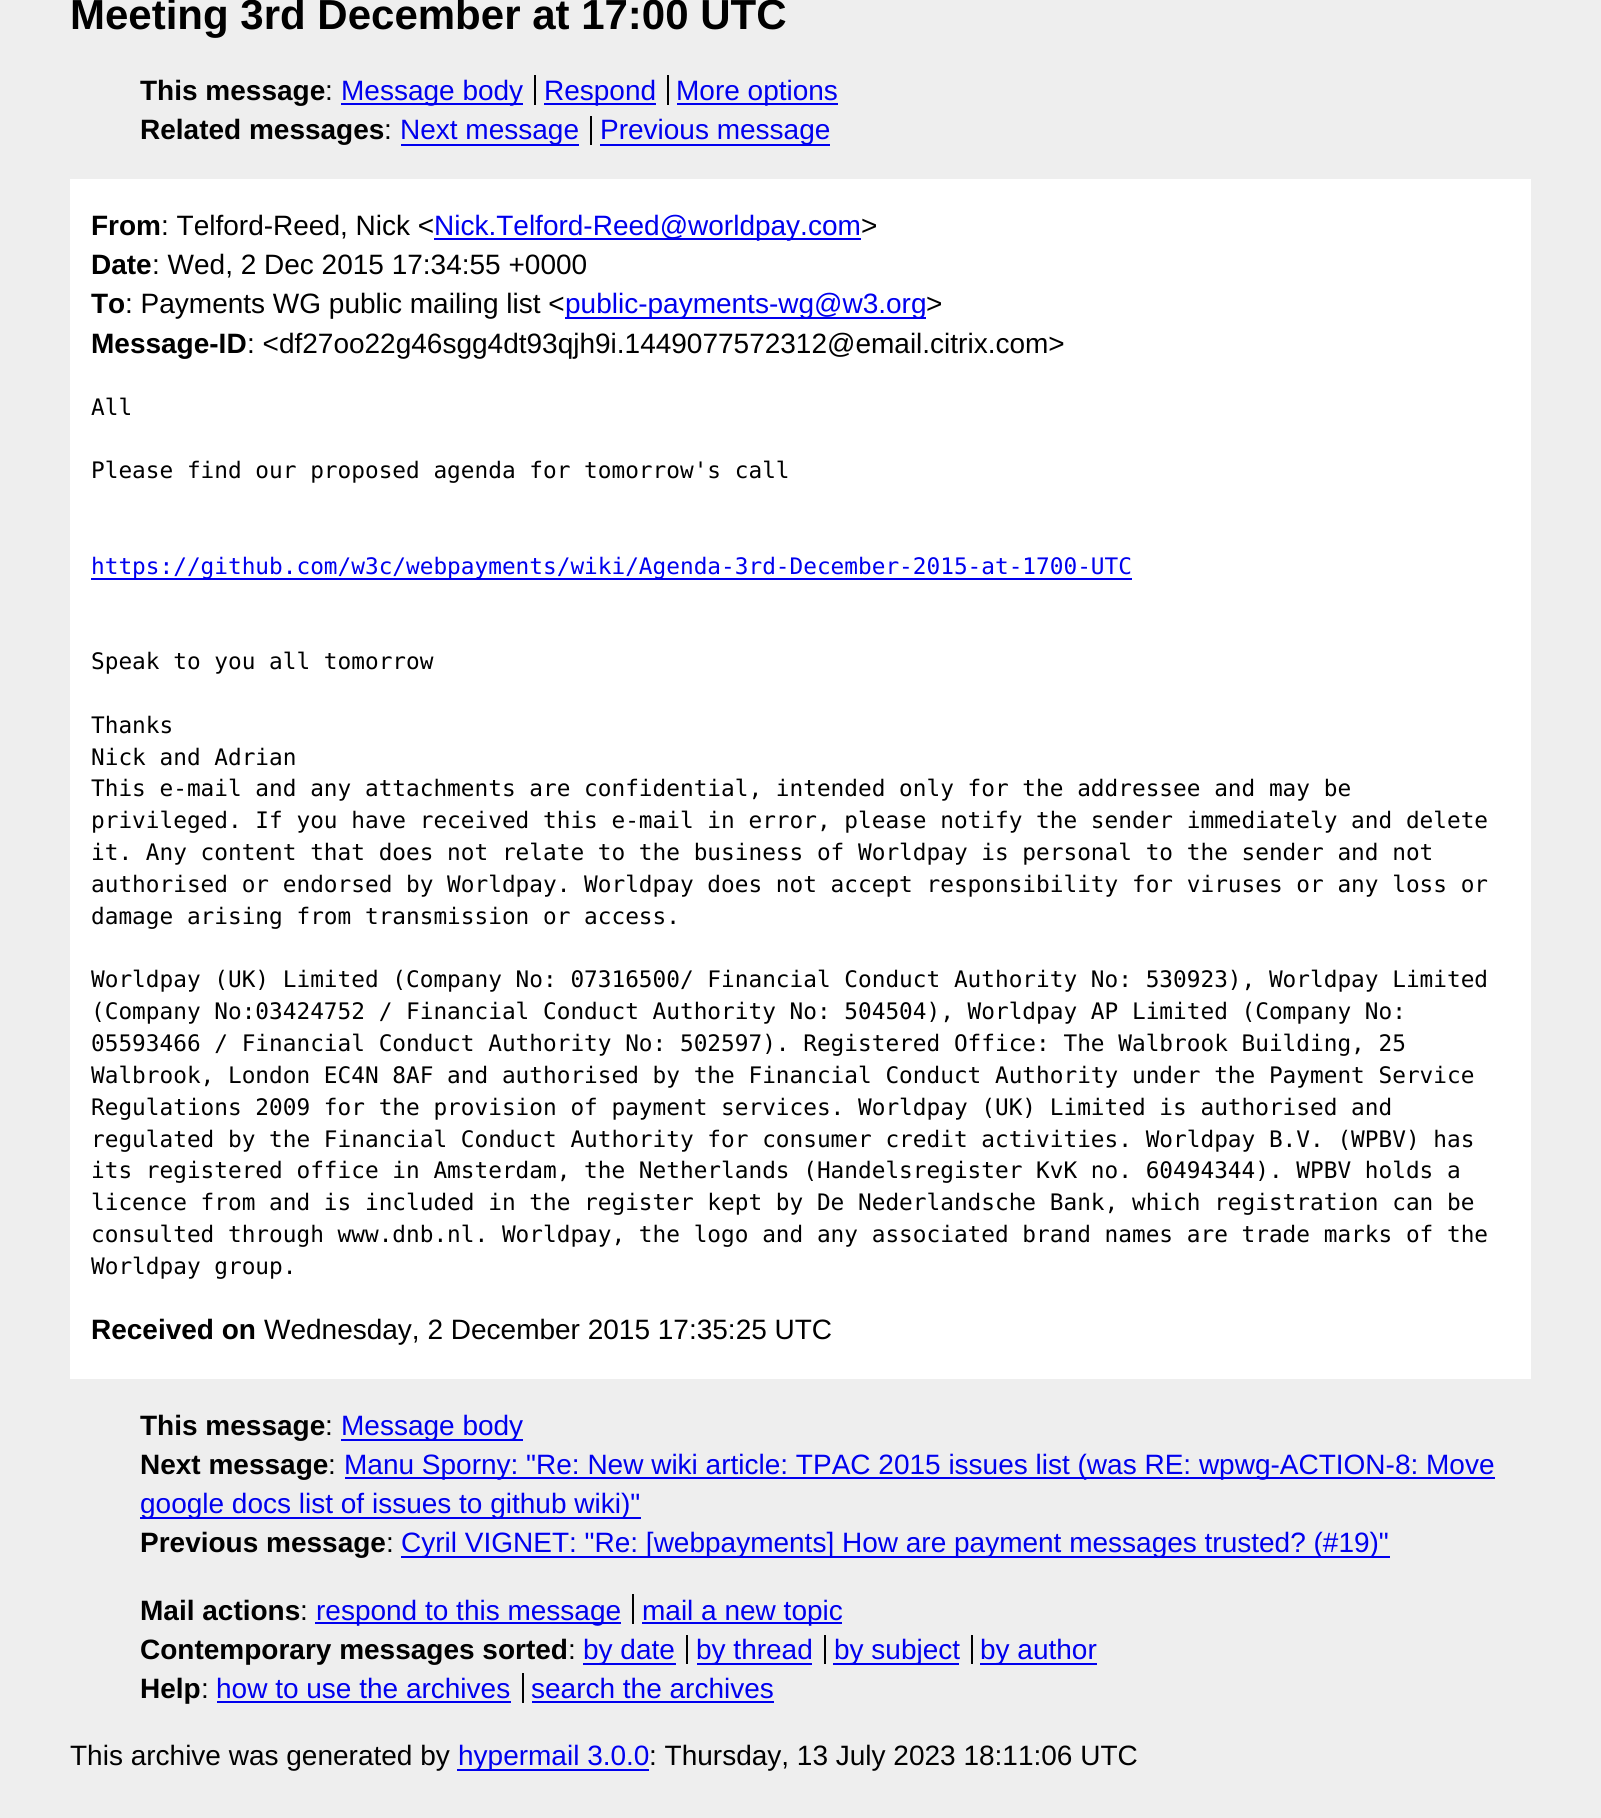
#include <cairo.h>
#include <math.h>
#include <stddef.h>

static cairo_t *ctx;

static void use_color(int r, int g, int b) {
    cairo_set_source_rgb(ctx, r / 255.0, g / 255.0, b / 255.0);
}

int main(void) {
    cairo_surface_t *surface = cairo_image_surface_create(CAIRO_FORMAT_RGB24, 1601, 1818);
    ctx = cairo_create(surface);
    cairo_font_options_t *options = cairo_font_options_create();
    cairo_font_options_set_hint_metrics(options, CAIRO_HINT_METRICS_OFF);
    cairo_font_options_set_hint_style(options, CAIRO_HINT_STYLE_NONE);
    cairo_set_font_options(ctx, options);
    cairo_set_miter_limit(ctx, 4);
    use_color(238, 238, 238);
    cairo_paint(ctx);
    cairo_select_font_face(ctx, "Liberation Sans", CAIRO_FONT_SLANT_NORMAL, CAIRO_FONT_WEIGHT_BOLD);
    cairo_set_font_size(ctx, 42);
    use_color(0, 0, 0);
    cairo_move_to(ctx, 70, 29);
    cairo_show_text(ctx, "Meeting 3rd December at 17:00 UTC");
    cairo_set_font_size(ctx, 28);
    cairo_move_to(ctx, 140, 100);
    cairo_show_text(ctx, "This message");
    cairo_select_font_face(ctx, "Liberation Sans", CAIRO_FONT_SLANT_NORMAL, CAIRO_FONT_WEIGHT_NORMAL);
    cairo_move_to(ctx, 325, 100);
    cairo_show_text(ctx, ":");
    use_color(0, 0, 238);
    cairo_rectangle(ctx, 341, 103, 182, 2);
    cairo_fill(ctx);
    cairo_move_to(ctx, 341, 100);
    cairo_show_text(ctx, "Message body");
    cairo_rectangle(ctx, 544, 103, 112, 2);
    cairo_fill(ctx);
    cairo_move_to(ctx, 544, 100);
    cairo_show_text(ctx, "Respond");
    use_color(0, 0, 0);
    cairo_rectangle(ctx, 534, 75, 2, 30);
    cairo_fill(ctx);
    use_color(0, 0, 238);
    cairo_rectangle(ctx, 677, 103, 161, 2);
    cairo_fill(ctx);
    cairo_move_to(ctx, 676, 100);
    cairo_show_text(ctx, "More options");
    use_color(0, 0, 0);
    cairo_rectangle(ctx, 667, 75, 2, 30);
    cairo_fill(ctx);
    cairo_select_font_face(ctx, "Liberation Sans", CAIRO_FONT_SLANT_NORMAL, CAIRO_FONT_WEIGHT_BOLD);
    cairo_move_to(ctx, 140, 139);
    cairo_show_text(ctx, "Related messages");
    cairo_select_font_face(ctx, "Liberation Sans", CAIRO_FONT_SLANT_NORMAL, CAIRO_FONT_WEIGHT_NORMAL);
    cairo_move_to(ctx, 384, 139);
    cairo_show_text(ctx, ":");
    use_color(0, 0, 238);
    cairo_rectangle(ctx, 401, 144, 178, 2);
    cairo_fill(ctx);
    cairo_move_to(ctx, 400, 139);
    cairo_show_text(ctx, "Next message");
    cairo_rectangle(ctx, 600, 144, 230, 2);
    cairo_fill(ctx);
    cairo_move_to(ctx, 600, 139);
    cairo_show_text(ctx, "Previous message");
    use_color(0, 0, 0);
    cairo_rectangle(ctx, 590, 116, 2, 29);
    cairo_fill(ctx);
    use_color(255, 255, 255);
    cairo_rectangle(ctx, 70, 179, 1461, 1200);
    cairo_fill(ctx);
    cairo_select_font_face(ctx, "Liberation Sans", CAIRO_FONT_SLANT_NORMAL, CAIRO_FONT_WEIGHT_BOLD);
    use_color(0, 0, 0);
    cairo_move_to(ctx, 91, 235);
    cairo_show_text(ctx, "From");
    cairo_select_font_face(ctx, "Liberation Sans", CAIRO_FONT_SLANT_NORMAL, CAIRO_FONT_WEIGHT_NORMAL);
    cairo_move_to(ctx, 161, 235);
    cairo_show_text(ctx, ": Telford-Reed, Nick <");
    use_color(0, 0, 238);
    cairo_rectangle(ctx, 434, 238, 427, 2);
    cairo_fill(ctx);
    cairo_move_to(ctx, 434, 235);
    cairo_show_text(ctx, "Nick.Telford-Reed@worldpay.com");
    use_color(0, 0, 0);
    cairo_move_to(ctx, 861, 235);
    cairo_show_text(ctx, ">");
    cairo_select_font_face(ctx, "Liberation Sans", CAIRO_FONT_SLANT_NORMAL, CAIRO_FONT_WEIGHT_BOLD);
    cairo_move_to(ctx, 91, 274);
    cairo_show_text(ctx, "Date");
    cairo_select_font_face(ctx, "Liberation Sans", CAIRO_FONT_SLANT_NORMAL, CAIRO_FONT_WEIGHT_NORMAL);
    cairo_move_to(ctx, 152, 274);
    cairo_show_text(ctx, ": Wed, 2 Dec 2015 17:34:55 +0000");
    cairo_select_font_face(ctx, "Liberation Sans", CAIRO_FONT_SLANT_NORMAL, CAIRO_FONT_WEIGHT_BOLD);
    cairo_move_to(ctx, 91, 313);
    cairo_show_text(ctx, "To");
    cairo_select_font_face(ctx, "Liberation Sans", CAIRO_FONT_SLANT_NORMAL, CAIRO_FONT_WEIGHT_NORMAL);
    cairo_move_to(ctx, 125, 313);
    cairo_show_text(ctx, ": Payments WG public mailing list <");
    use_color(0, 0, 238);
    cairo_rectangle(ctx, 565, 317, 361, 2);
    cairo_fill(ctx);
    cairo_move_to(ctx, 565, 313);
    cairo_show_text(ctx, "public-payments-wg@w3.org");
    use_color(0, 0, 0);
    cairo_move_to(ctx, 926, 313);
    cairo_show_text(ctx, ">");
    cairo_select_font_face(ctx, "Liberation Sans", CAIRO_FONT_SLANT_NORMAL, CAIRO_FONT_WEIGHT_BOLD);
    cairo_move_to(ctx, 91, 353);
    cairo_show_text(ctx, "Message-ID");
    cairo_select_font_face(ctx, "Liberation Sans", CAIRO_FONT_SLANT_NORMAL, CAIRO_FONT_WEIGHT_NORMAL);
    cairo_move_to(ctx, 247, 353);
    cairo_show_text(ctx, ": <df27oo22g46sgg4dt93qjh9i.1449077572312@email.citrix.com>");
    cairo_select_font_face(ctx, "DejaVu Sans Mono", CAIRO_FONT_SLANT_NORMAL, CAIRO_FONT_WEIGHT_NORMAL);
    cairo_set_font_size(ctx, 22.75);
    cairo_move_to(ctx, 91, 415);
    cairo_show_text(ctx, "All");
    cairo_move_to(ctx, 91, 478);
    cairo_show_text(ctx, "Please find our proposed agenda for tomorrow's call");
    use_color(0, 0, 238);
    cairo_rectangle(ctx, 91, 578, 1041, 2);
    cairo_fill(ctx);
    cairo_move_to(ctx, 91, 574);
    cairo_show_text(ctx, "https://github.com/w3c/webpayments/wiki/Agenda-3rd-December-2015-at-1700-UTC");
    use_color(0, 0, 0);
    cairo_move_to(ctx, 91, 669);
    cairo_show_text(ctx, "Speak to you all tomorrow");
    cairo_move_to(ctx, 91, 733);
    cairo_show_text(ctx, "Thanks");
    cairo_move_to(ctx, 91, 765);
    cairo_show_text(ctx, "Nick and Adrian");
    cairo_move_to(ctx, 91, 796);
    cairo_show_text(ctx, "This e-mail and any attachments are confidential, intended only for the addressee and may be");
    cairo_move_to(ctx, 91, 828);
    cairo_show_text(ctx, "privileged. If you have received this e-mail in error, please notify the sender immediately and delete");
    cairo_move_to(ctx, 91, 860);
    cairo_show_text(ctx, "it. Any content that does not relate to the business of Worldpay is personal to the sender and not");
    cairo_move_to(ctx, 91, 892);
    cairo_show_text(ctx, "authorised or endorsed by Worldpay. Worldpay does not accept responsibility for viruses or any loss or");
    cairo_move_to(ctx, 91, 924);
    cairo_show_text(ctx, "damage arising from transmission or access.");
    cairo_move_to(ctx, 91, 987);
    cairo_show_text(ctx, "Worldpay (UK) Limited (Company No: 07316500/ Financial Conduct Authority No: 530923), Worldpay Limited");
    cairo_move_to(ctx, 91, 1019);
    cairo_show_text(ctx, "(Company No:03424752 / Financial Conduct Authority No: 504504), Worldpay AP Limited (Company No:");
    cairo_move_to(ctx, 91, 1051);
    cairo_show_text(ctx, "05593466 / Financial Conduct Authority No: 502597). Registered Office: The Walbrook Building, 25");
    cairo_move_to(ctx, 91, 1083);
    cairo_show_text(ctx, "Walbrook, London EC4N 8AF and authorised by the Financial Conduct Authority under the Payment Service");
    cairo_move_to(ctx, 91, 1115);
    cairo_show_text(ctx, "Regulations 2009 for the provision of payment services. Worldpay (UK) Limited is authorised and");
    cairo_move_to(ctx, 91, 1147);
    cairo_show_text(ctx, "regulated by the Financial Conduct Authority for consumer credit activities. Worldpay B.V. (WPBV) has");
    cairo_move_to(ctx, 91, 1178);
    cairo_show_text(ctx, "its registered office in Amsterdam, the Netherlands (Handelsregister KvK no. 60494344). WPBV holds a");
    cairo_move_to(ctx, 91, 1210);
    cairo_show_text(ctx, "licence from and is included in the register kept by De Nederlandsche Bank, which registration can be");
    cairo_move_to(ctx, 91, 1242);
    cairo_show_text(ctx, "consulted through www.dnb.nl. Worldpay, the logo and any associated brand names are trade marks of the");
    cairo_move_to(ctx, 91, 1274);
    cairo_show_text(ctx, "Worldpay group.");
    cairo_select_font_face(ctx, "Liberation Sans", CAIRO_FONT_SLANT_NORMAL, CAIRO_FONT_WEIGHT_BOLD);
    cairo_set_font_size(ctx, 28);
    cairo_move_to(ctx, 91, 1339);
    cairo_show_text(ctx, "Received on");
    cairo_select_font_face(ctx, "Liberation Sans", CAIRO_FONT_SLANT_NORMAL, CAIRO_FONT_WEIGHT_NORMAL);
    cairo_move_to(ctx, 264, 1339);
    cairo_show_text(ctx, "Wednesday, 2 December 2015 17:35:25 UTC");
    cairo_select_font_face(ctx, "Liberation Sans", CAIRO_FONT_SLANT_NORMAL, CAIRO_FONT_WEIGHT_BOLD);
    cairo_move_to(ctx, 140, 1435);
    cairo_show_text(ctx, "This message");
    cairo_select_font_face(ctx, "Liberation Sans", CAIRO_FONT_SLANT_NORMAL, CAIRO_FONT_WEIGHT_NORMAL);
    cairo_move_to(ctx, 325, 1435);
    cairo_show_text(ctx, ":");
    use_color(0, 0, 238);
    cairo_rectangle(ctx, 341, 1439, 182, 2);
    cairo_fill(ctx);
    cairo_move_to(ctx, 341, 1435);
    cairo_show_text(ctx, "Message body");
    cairo_select_font_face(ctx, "Liberation Sans", CAIRO_FONT_SLANT_NORMAL, CAIRO_FONT_WEIGHT_BOLD);
    use_color(0, 0, 0);
    cairo_move_to(ctx, 140, 1474);
    cairo_show_text(ctx, "Next message");
    cairo_select_font_face(ctx, "Liberation Sans", CAIRO_FONT_SLANT_NORMAL, CAIRO_FONT_WEIGHT_NORMAL);
    cairo_move_to(ctx, 328, 1474);
    cairo_show_text(ctx, ":");
    use_color(0, 0, 238);
    cairo_rectangle(ctx, 345, 1477, 1150, 2);
    cairo_fill(ctx);
    cairo_move_to(ctx, 344, 1474);
    cairo_show_text(ctx, "Manu Sporny: \"Re: New wiki article: TPAC 2015 issues list (was RE: wpwg-ACTION-8: Move");
    cairo_rectangle(ctx, 140, 1517, 501, 2);
    cairo_fill(ctx);
    cairo_move_to(ctx, 140, 1513);
    cairo_show_text(ctx, "google docs list of issues to github wiki)\"");
    cairo_select_font_face(ctx, "Liberation Sans", CAIRO_FONT_SLANT_NORMAL, CAIRO_FONT_WEIGHT_BOLD);
    use_color(0, 0, 0);
    cairo_move_to(ctx, 140, 1552);
    cairo_show_text(ctx, "Previous message");
    cairo_select_font_face(ctx, "Liberation Sans", CAIRO_FONT_SLANT_NORMAL, CAIRO_FONT_WEIGHT_NORMAL);
    cairo_move_to(ctx, 386, 1552);
    cairo_show_text(ctx, ":");
    use_color(0, 0, 238);
    cairo_rectangle(ctx, 401, 1556, 989, 2);
    cairo_fill(ctx);
    cairo_move_to(ctx, 401, 1552);
    cairo_show_text(ctx, "Cyril VIGNET: \"Re: [webpayments] How are payment messages trusted? (#19)\"");
    cairo_select_font_face(ctx, "Liberation Sans", CAIRO_FONT_SLANT_NORMAL, CAIRO_FONT_WEIGHT_BOLD);
    use_color(0, 0, 0);
    cairo_move_to(ctx, 140, 1620);
    cairo_show_text(ctx, "Mail actions");
    cairo_select_font_face(ctx, "Liberation Sans", CAIRO_FONT_SLANT_NORMAL, CAIRO_FONT_WEIGHT_NORMAL);
    cairo_move_to(ctx, 300, 1620);
    cairo_show_text(ctx, ":");
    use_color(0, 0, 238);
    cairo_rectangle(ctx, 315, 1622, 306, 2);
    cairo_fill(ctx);
    cairo_move_to(ctx, 316, 1620);
    cairo_show_text(ctx, "respond to this message");
    cairo_rectangle(ctx, 642, 1622, 200, 2);
    cairo_fill(ctx);
    cairo_move_to(ctx, 642, 1620);
    cairo_show_text(ctx, "mail a new topic");
    use_color(0, 0, 0);
    cairo_rectangle(ctx, 632, 1594, 2, 30);
    cairo_fill(ctx);
    cairo_select_font_face(ctx, "Liberation Sans", CAIRO_FONT_SLANT_NORMAL, CAIRO_FONT_WEIGHT_BOLD);
    cairo_move_to(ctx, 140, 1659);
    cairo_show_text(ctx, "Contemporary messages sorted");
    cairo_select_font_face(ctx, "Liberation Sans", CAIRO_FONT_SLANT_NORMAL, CAIRO_FONT_WEIGHT_NORMAL);
    cairo_move_to(ctx, 568, 1659);
    cairo_show_text(ctx, ":");
    use_color(0, 0, 238);
    cairo_rectangle(ctx, 583, 1663, 93, 2);
    cairo_fill(ctx);
    cairo_move_to(ctx, 583, 1659);
    cairo_show_text(ctx, "by date");
    cairo_rectangle(ctx, 697, 1663, 115, 2);
    cairo_fill(ctx);
    cairo_move_to(ctx, 696, 1659);
    cairo_show_text(ctx, "by thread");
    use_color(0, 0, 0);
    cairo_rectangle(ctx, 686, 1635, 2, 29);
    cairo_fill(ctx);
    use_color(0, 0, 238);
    cairo_rectangle(ctx, 833, 1663, 126, 2);
    cairo_fill(ctx);
    cairo_move_to(ctx, 834, 1659);
    cairo_show_text(ctx, "by subject");
    use_color(0, 0, 0);
    cairo_rectangle(ctx, 824, 1635, 2, 29);
    cairo_fill(ctx);
    use_color(0, 0, 238);
    cairo_rectangle(ctx, 980, 1663, 117, 2);
    cairo_fill(ctx);
    cairo_move_to(ctx, 980, 1659);
    cairo_show_text(ctx, "by author");
    use_color(0, 0, 0);
    cairo_rectangle(ctx, 971, 1635, 2, 29);
    cairo_fill(ctx);
    cairo_select_font_face(ctx, "Liberation Sans", CAIRO_FONT_SLANT_NORMAL, CAIRO_FONT_WEIGHT_BOLD);
    cairo_move_to(ctx, 140, 1698);
    cairo_show_text(ctx, "Help");
    cairo_select_font_face(ctx, "Liberation Sans", CAIRO_FONT_SLANT_NORMAL, CAIRO_FONT_WEIGHT_NORMAL);
    cairo_move_to(ctx, 201, 1698);
    cairo_show_text(ctx, ":");
    use_color(0, 0, 238);
    cairo_move_to(ctx, 216, 1698);
    cairo_show_text(ctx, "how to use the archives");
    cairo_rectangle(ctx, 217, 1701, 294, 2);
    cairo_fill(ctx);
    cairo_move_to(ctx, 531, 1698);
    cairo_show_text(ctx, "search the archives");
    use_color(0, 0, 0);
    cairo_rectangle(ctx, 522, 1673, 2, 30);
    cairo_fill(ctx);
    use_color(0, 0, 238);
    cairo_rectangle(ctx, 532, 1701, 242, 2);
    cairo_fill(ctx);
    use_color(0, 0, 0);
    cairo_move_to(ctx, 70, 1765);
    cairo_show_text(ctx, "This archive was generated by");
    use_color(0, 0, 238);
    cairo_rectangle(ctx, 457, 1769, 192, 2);
    cairo_fill(ctx);
    cairo_move_to(ctx, 458, 1765);
    cairo_show_text(ctx, "hypermail 3.0.0");
    use_color(0, 0, 0);
    cairo_move_to(ctx, 649, 1765);
    cairo_show_text(ctx, ": Thursday, 13 July 2023 18:11:06 UTC");
    cairo_surface_write_to_png(surface, "result.png");
    cairo_font_options_destroy(options);
    cairo_destroy(ctx);
    cairo_surface_destroy(surface);
    return 0;
}
